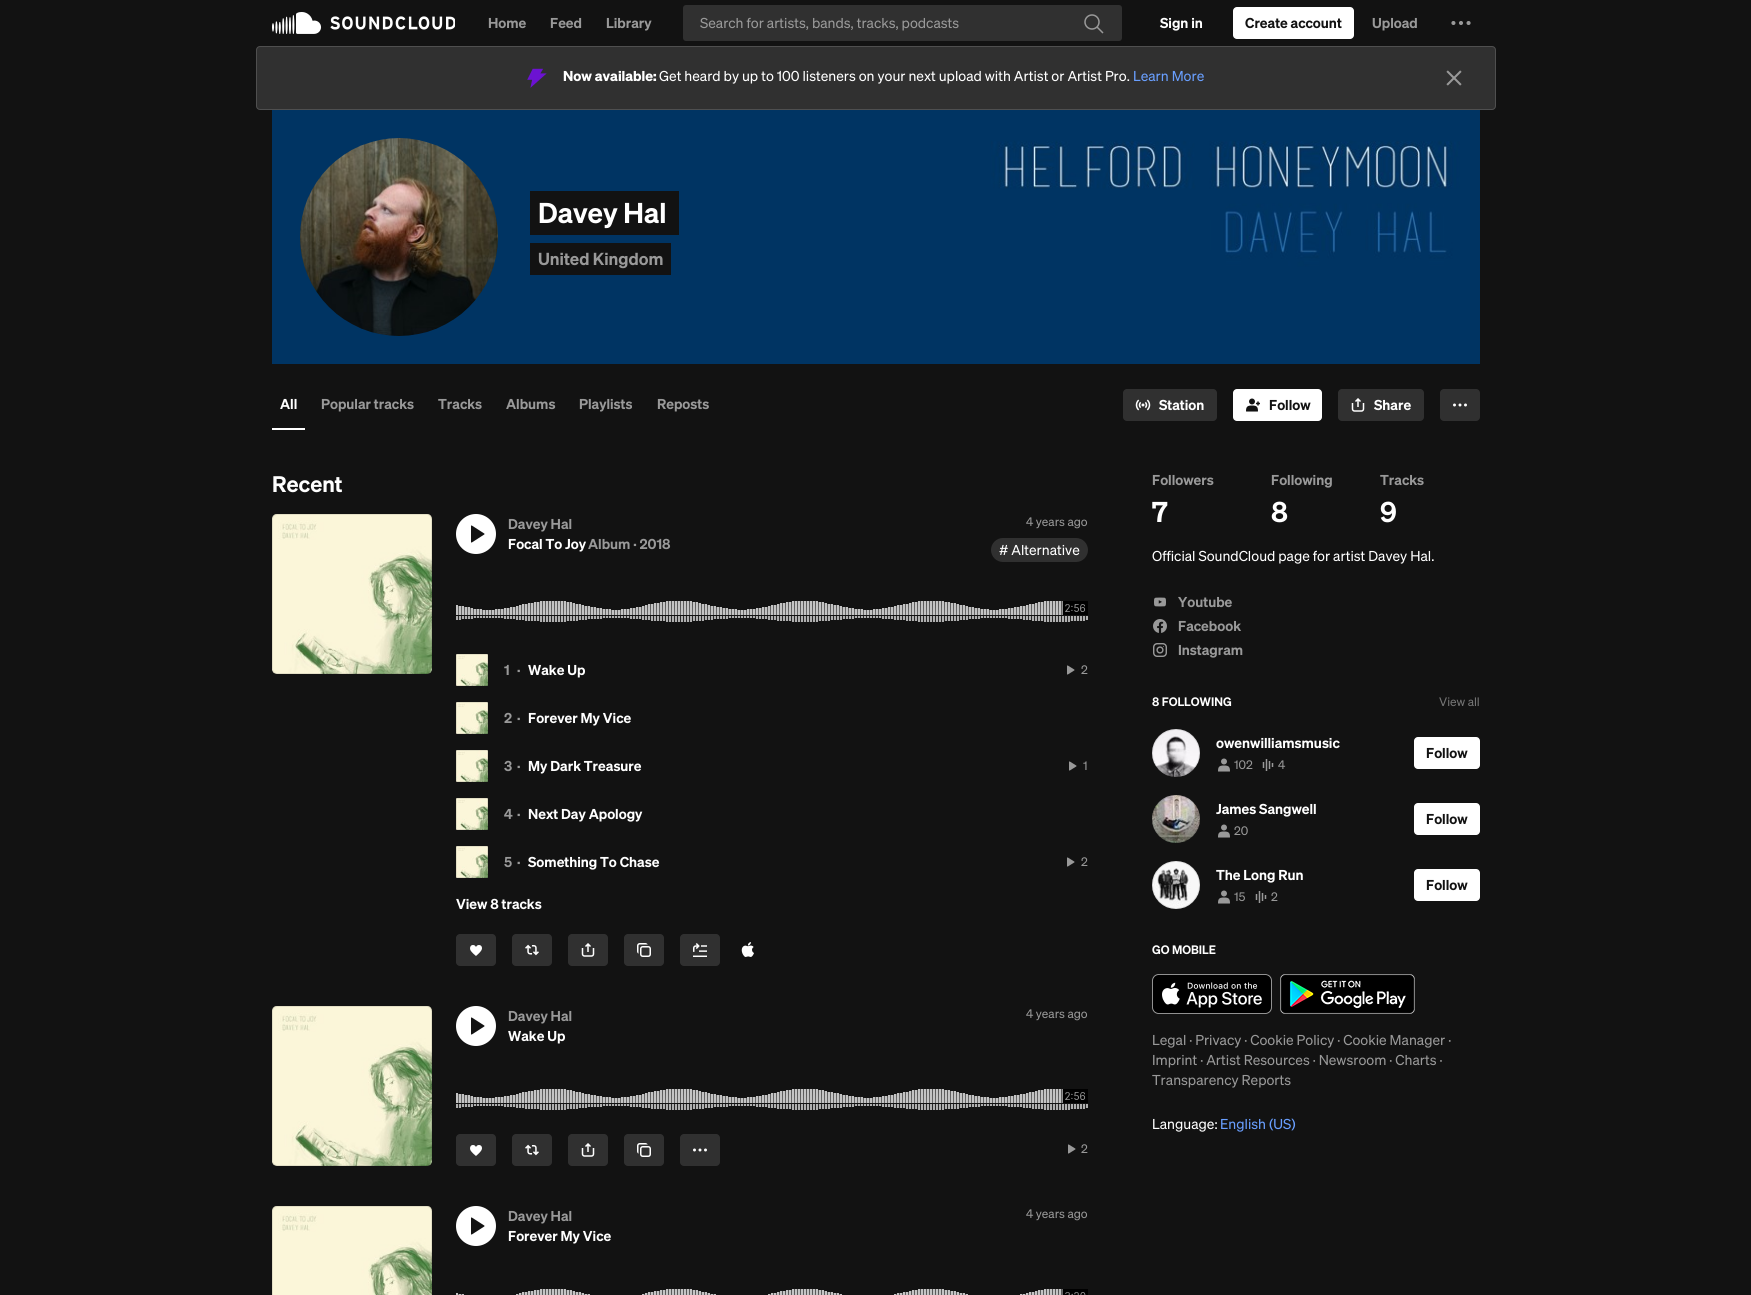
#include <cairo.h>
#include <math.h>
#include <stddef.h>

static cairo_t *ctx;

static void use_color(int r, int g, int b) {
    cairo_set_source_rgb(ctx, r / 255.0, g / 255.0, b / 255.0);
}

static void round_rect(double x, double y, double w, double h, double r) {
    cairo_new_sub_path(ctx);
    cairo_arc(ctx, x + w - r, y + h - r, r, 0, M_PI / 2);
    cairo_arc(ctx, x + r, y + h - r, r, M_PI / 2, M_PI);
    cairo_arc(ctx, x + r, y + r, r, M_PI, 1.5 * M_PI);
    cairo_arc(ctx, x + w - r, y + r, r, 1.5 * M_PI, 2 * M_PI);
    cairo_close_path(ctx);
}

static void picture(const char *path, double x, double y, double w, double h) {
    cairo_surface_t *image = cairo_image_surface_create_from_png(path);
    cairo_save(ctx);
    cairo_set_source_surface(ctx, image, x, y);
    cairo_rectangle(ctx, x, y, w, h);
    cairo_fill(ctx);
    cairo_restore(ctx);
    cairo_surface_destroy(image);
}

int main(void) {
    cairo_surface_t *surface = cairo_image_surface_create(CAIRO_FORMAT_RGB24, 1751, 1295);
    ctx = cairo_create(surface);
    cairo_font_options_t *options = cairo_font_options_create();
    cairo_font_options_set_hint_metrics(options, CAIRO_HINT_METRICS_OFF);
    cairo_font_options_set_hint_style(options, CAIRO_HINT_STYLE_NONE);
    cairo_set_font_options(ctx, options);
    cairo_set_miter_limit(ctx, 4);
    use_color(18, 18, 18);
    cairo_paint(ctx);
    picture("img1.png", 272, 12, 183, 22);
    cairo_select_font_face(ctx, "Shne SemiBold", CAIRO_FONT_SLANT_NORMAL, CAIRO_FONT_WEIGHT_NORMAL);
    cairo_set_font_size(ctx, 14);
    use_color(153, 153, 153);
    cairo_move_to(ctx, 488, 28);
    cairo_show_text(ctx, "Home");
    cairo_move_to(ctx, 550, 28);
    cairo_show_text(ctx, "Feed");
    cairo_move_to(ctx, 606, 28);
    cairo_show_text(ctx, "Library");
    use_color(48, 48, 48);
    round_rect(683, 5, 439, 36, 3);
    cairo_fill(ctx);
    cairo_select_font_face(ctx, "Shne", CAIRO_FONT_SLANT_NORMAL, CAIRO_FONT_WEIGHT_NORMAL);
    use_color(153, 153, 153);
    cairo_move_to(ctx, 700, 28);
    cairo_show_text(ctx, "Search for artists, bands, tracks, podcasts");
    picture("img2.png", 1084, 14, 20, 20);
    cairo_select_font_face(ctx, "Shne SemiBold", CAIRO_FONT_SLANT_NORMAL, CAIRO_FONT_WEIGHT_NORMAL);
    use_color(255, 255, 255);
    cairo_move_to(ctx, 1160, 28);
    cairo_show_text(ctx, "Sign in");
    round_rect(1233, 7, 121, 32, 4);
    cairo_fill(ctx);
    use_color(18, 18, 18);
    cairo_move_to(ctx, 1245, 28);
    cairo_show_text(ctx, "Create account");
    use_color(153, 153, 153);
    cairo_move_to(ctx, 1372, 28);
    cairo_show_text(ctx, "Upload");
    picture("img3.png", 1451, 21, 20, 4);
    use_color(48, 48, 48);
    round_rect(256, 46, 1240, 64, 4);
    cairo_fill(ctx);
    round_rect(256.5, 46.5, 1239, 63, 3.5);
    cairo_set_source_rgba(ctx, 1, 1, 1, 0.15);
    cairo_set_line_width(ctx, 1);
    cairo_stroke(ctx);
    picture("img4.png", 527, 68, 20, 20);
    cairo_select_font_face(ctx, "Shne", CAIRO_FONT_SLANT_NORMAL, CAIRO_FONT_WEIGHT_BOLD);
    use_color(255, 255, 255);
    cairo_move_to(ctx, 563, 81);
    cairo_show_text(ctx, "Now available:");
    cairo_select_font_face(ctx, "Shne", CAIRO_FONT_SLANT_NORMAL, CAIRO_FONT_WEIGHT_NORMAL);
    cairo_move_to(ctx, 659, 81);
    cairo_show_text(ctx, "Get heard by up to 100 listeners on your next upload with Artist or Artist Pro.");
    use_color(105, 159, 255);
    cairo_move_to(ctx, 1133, 81);
    cairo_show_text(ctx, "Learn More");
    picture("img5.png", 1446, 70, 16, 16);
    picture("img6.png", 272, 110, 1208, 254);
    picture("img7.png", 300, 138, 198, 198);
    use_color(18, 18, 18);
    cairo_rectangle(ctx, 530, 191, 149, 44);
    cairo_fill(ctx);
    cairo_select_font_face(ctx, "Shne SemiBold", CAIRO_FONT_SLANT_NORMAL, CAIRO_FONT_WEIGHT_NORMAL);
    cairo_set_font_size(ctx, 28);
    use_color(255, 255, 255);
    cairo_move_to(ctx, 538, 223);
    cairo_show_text(ctx, "Davey Hal");
    use_color(18, 18, 18);
    cairo_rectangle(ctx, 530, 243, 141, 32);
    cairo_fill(ctx);
    cairo_set_font_size(ctx, 17);
    use_color(153, 153, 153);
    cairo_move_to(ctx, 538, 265);
    cairo_show_text(ctx, "United Kingdom");
    use_color(255, 255, 255);
    cairo_rectangle(ctx, 272, 428, 33, 2);
    cairo_fill(ctx);
    cairo_set_font_size(ctx, 14);
    cairo_move_to(ctx, 280, 409);
    cairo_show_text(ctx, "All");
    use_color(153, 153, 153);
    cairo_move_to(ctx, 321, 409);
    cairo_show_text(ctx, "Popular tracks");
    cairo_move_to(ctx, 438, 409);
    cairo_show_text(ctx, "Tracks");
    cairo_move_to(ctx, 506, 409);
    cairo_show_text(ctx, "Albums");
    cairo_move_to(ctx, 579, 409);
    cairo_show_text(ctx, "Playlists");
    cairo_move_to(ctx, 657, 409);
    cairo_show_text(ctx, "Reposts");
    use_color(48, 48, 48);
    round_rect(1123, 389, 94, 32, 4);
    cairo_fill(ctx);
    picture("img8.png", 1135, 399, 16, 12);
    use_color(255, 255, 255);
    cairo_move_to(ctx, 1159, 410);
    cairo_show_text(ctx, "Station");
    round_rect(1233, 389, 89, 32, 4);
    cairo_fill(ctx);
    picture("img9.png", 1246, 398, 14, 14);
    use_color(18, 18, 18);
    cairo_move_to(ctx, 1269, 410);
    cairo_show_text(ctx, "Follow");
    use_color(48, 48, 48);
    round_rect(1338, 389, 86, 32, 4);
    cairo_fill(ctx);
    picture("img10.png", 1351, 398, 14, 14);
    use_color(255, 255, 255);
    cairo_move_to(ctx, 1374, 410);
    cairo_show_text(ctx, "Share");
    use_color(48, 48, 48);
    round_rect(1440, 389, 40, 32, 4);
    cairo_fill(ctx);
    picture("img11.png", 1453, 403, 14, 4);
    cairo_set_font_size(ctx, 22);
    use_color(255, 255, 255);
    cairo_move_to(ctx, 272, 492);
    cairo_show_text(ctx, "Recent");
    picture("img12.png", 272, 514, 160, 160);
    round_rect(272.5, 514.5, 159, 159, 4.5);
    cairo_set_source_rgba(ctx, 0.071, 0.071, 0.071, 0.1);
    cairo_stroke(ctx);
    use_color(255, 255, 255);
    cairo_arc(ctx, 476, 534, 20, 0, 2 * M_PI);
    cairo_fill(ctx);
    picture("img13.png", 471, 525, 14, 18);
    cairo_set_font_size(ctx, 14);
    use_color(153, 153, 153);
    cairo_move_to(ctx, 508, 529);
    cairo_show_text(ctx, "Davey Hal");
    use_color(255, 255, 255);
    cairo_move_to(ctx, 508, 549);
    cairo_show_text(ctx, "Focal To Joy");
    use_color(153, 153, 153);
    cairo_move_to(ctx, 588, 549);
    cairo_show_text(ctx, "Album · 2018");
    cairo_select_font_face(ctx, "Shne", CAIRO_FONT_SLANT_NORMAL, CAIRO_FONT_WEIGHT_NORMAL);
    cairo_set_font_size(ctx, 12);
    cairo_move_to(ctx, 1026, 526);
    cairo_show_text(ctx, "4 years ago");
    use_color(48, 48, 48);
    round_rect(991, 538, 97, 24, 12);
    cairo_fill(ctx);
    cairo_set_font_size(ctx, 14);
    use_color(255, 255, 255);
    cairo_move_to(ctx, 999, 555);
    cairo_show_text(ctx, "# Alternative");
    picture("img14.png", 456, 601, 632, 21);
    picture("img15.png", 1062, 601, 26, 14);
    picture("img16.png", 456, 654, 32, 32);
    cairo_rectangle(ctx, 456.5, 654.5, 31, 31);
    cairo_set_source_rgba(ctx, 0.071, 0.071, 0.071, 0.1);
    cairo_stroke(ctx);
    cairo_select_font_face(ctx, "Shne SemiBold", CAIRO_FONT_SLANT_NORMAL, CAIRO_FONT_WEIGHT_NORMAL);
    use_color(153, 153, 153);
    cairo_move_to(ctx, 504, 675);
    cairo_show_text(ctx, "1");
    cairo_move_to(ctx, 517, 675);
    cairo_show_text(ctx, "·");
    use_color(255, 255, 255);
    cairo_move_to(ctx, 528, 675);
    cairo_show_text(ctx, "Wake Up");
    picture("img17.png", 1067, 665, 8, 10);
    cairo_select_font_face(ctx, "Shne", CAIRO_FONT_SLANT_NORMAL, CAIRO_FONT_WEIGHT_NORMAL);
    cairo_set_font_size(ctx, 12);
    use_color(153, 153, 153);
    cairo_move_to(ctx, 1081, 674);
    cairo_show_text(ctx, "2");
    picture("img16.png", 456, 702, 32, 32);
    cairo_rectangle(ctx, 456.5, 702.5, 31, 31);
    cairo_set_source_rgba(ctx, 0.071, 0.071, 0.071, 0.1);
    cairo_stroke(ctx);
    cairo_select_font_face(ctx, "Shne SemiBold", CAIRO_FONT_SLANT_NORMAL, CAIRO_FONT_WEIGHT_NORMAL);
    cairo_set_font_size(ctx, 14);
    use_color(153, 153, 153);
    cairo_move_to(ctx, 504, 723);
    cairo_show_text(ctx, "2");
    cairo_move_to(ctx, 517, 723);
    cairo_show_text(ctx, "·");
    use_color(255, 255, 255);
    cairo_move_to(ctx, 528, 723);
    cairo_show_text(ctx, "Forever My Vice");
    picture("img18.png", 456, 750, 32, 32);
    cairo_rectangle(ctx, 456.5, 750.5, 31, 31);
    cairo_set_source_rgba(ctx, 0.071, 0.071, 0.071, 0.1);
    cairo_stroke(ctx);
    use_color(153, 153, 153);
    cairo_move_to(ctx, 504, 771);
    cairo_show_text(ctx, "3");
    cairo_move_to(ctx, 517, 771);
    cairo_show_text(ctx, "·");
    use_color(255, 255, 255);
    cairo_move_to(ctx, 528, 771);
    cairo_show_text(ctx, "My Dark Treasure");
    picture("img17.png", 1069, 761, 8, 10);
    cairo_select_font_face(ctx, "Shne", CAIRO_FONT_SLANT_NORMAL, CAIRO_FONT_WEIGHT_NORMAL);
    cairo_set_font_size(ctx, 12);
    use_color(153, 153, 153);
    cairo_move_to(ctx, 1083, 770);
    cairo_show_text(ctx, "1");
    picture("img19.png", 456, 798, 32, 32);
    cairo_rectangle(ctx, 456.5, 798.5, 31, 31);
    cairo_set_source_rgba(ctx, 0.071, 0.071, 0.071, 0.1);
    cairo_stroke(ctx);
    cairo_select_font_face(ctx, "Shne SemiBold", CAIRO_FONT_SLANT_NORMAL, CAIRO_FONT_WEIGHT_NORMAL);
    cairo_set_font_size(ctx, 14);
    use_color(153, 153, 153);
    cairo_move_to(ctx, 504, 819);
    cairo_show_text(ctx, "4");
    cairo_move_to(ctx, 517, 819);
    cairo_show_text(ctx, "·");
    use_color(255, 255, 255);
    cairo_move_to(ctx, 528, 819);
    cairo_show_text(ctx, "Next Day Apology");
    picture("img16.png", 456, 846, 32, 32);
    cairo_rectangle(ctx, 456.5, 846.5, 31, 31);
    cairo_set_source_rgba(ctx, 0.071, 0.071, 0.071, 0.1);
    cairo_stroke(ctx);
    use_color(153, 153, 153);
    cairo_move_to(ctx, 504, 867);
    cairo_show_text(ctx, "5");
    cairo_move_to(ctx, 517, 867);
    cairo_show_text(ctx, "·");
    use_color(255, 255, 255);
    cairo_move_to(ctx, 528, 867);
    cairo_show_text(ctx, "Something To Chase");
    picture("img17.png", 1067, 857, 8, 10);
    cairo_select_font_face(ctx, "Shne", CAIRO_FONT_SLANT_NORMAL, CAIRO_FONT_WEIGHT_NORMAL);
    cairo_set_font_size(ctx, 12);
    use_color(153, 153, 153);
    cairo_move_to(ctx, 1081, 866);
    cairo_show_text(ctx, "2");
    cairo_select_font_face(ctx, "Shne SemiBold", CAIRO_FONT_SLANT_NORMAL, CAIRO_FONT_WEIGHT_NORMAL);
    cairo_set_font_size(ctx, 14);
    use_color(255, 255, 255);
    cairo_move_to(ctx, 456, 909);
    cairo_show_text(ctx, "View 8 tracks");
    use_color(48, 48, 48);
    round_rect(456, 934, 40, 32, 4);
    cairo_fill(ctx);
    picture("img20.png", 470, 945, 12, 11);
    round_rect(512, 934, 40, 32, 4);
    cairo_fill(ctx);
    picture("img21.png", 525, 944, 14, 12);
    round_rect(568, 934, 40, 32, 4);
    cairo_fill(ctx);
    picture("img10.png", 581, 943, 14, 14);
    round_rect(624, 934, 40, 32, 4);
    cairo_fill(ctx);
    picture("img22.png", 637, 943, 14, 14);
    round_rect(680, 934, 40, 32, 4);
    cairo_fill(ctx);
    picture("img23.png", 693, 943, 14, 14);
    picture("img24.png", 741, 942, 13, 15);
    picture("img25.png", 272, 1006, 160, 160);
    round_rect(272.5, 1006.5, 159, 159, 4.5);
    cairo_set_source_rgba(ctx, 0.071, 0.071, 0.071, 0.1);
    cairo_stroke(ctx);
    use_color(255, 255, 255);
    cairo_arc(ctx, 476, 1026, 20, 0, 2 * M_PI);
    cairo_fill(ctx);
    picture("img13.png", 471, 1017, 14, 18);
    use_color(153, 153, 153);
    cairo_move_to(ctx, 508, 1021);
    cairo_show_text(ctx, "Davey Hal");
    use_color(255, 255, 255);
    cairo_move_to(ctx, 508, 1041);
    cairo_show_text(ctx, "Wake Up");
    cairo_select_font_face(ctx, "Shne", CAIRO_FONT_SLANT_NORMAL, CAIRO_FONT_WEIGHT_NORMAL);
    cairo_set_font_size(ctx, 12);
    use_color(153, 153, 153);
    cairo_move_to(ctx, 1026, 1018);
    cairo_show_text(ctx, "4 years ago");
    picture("img14.png", 456, 1089, 632, 21);
    picture("img15.png", 1062, 1089, 26, 14);
    use_color(48, 48, 48);
    round_rect(456, 1134, 40, 32, 4);
    cairo_fill(ctx);
    picture("img20.png", 470, 1145, 12, 11);
    round_rect(512, 1134, 40, 32, 4);
    cairo_fill(ctx);
    picture("img21.png", 525, 1144, 14, 12);
    round_rect(568, 1134, 40, 32, 4);
    cairo_fill(ctx);
    picture("img10.png", 581, 1143, 14, 14);
    round_rect(624, 1134, 40, 32, 4);
    cairo_fill(ctx);
    picture("img22.png", 637, 1143, 14, 14);
    round_rect(680, 1134, 40, 32, 4);
    cairo_fill(ctx);
    picture("img11.png", 693, 1148, 14, 4);
    picture("img17.png", 1068, 1144, 8, 10);
    use_color(153, 153, 153);
    cairo_move_to(ctx, 1081, 1153);
    cairo_show_text(ctx, "2");
    picture("img26.png", 272, 1206, 160, 89);
    round_rect(272.5, 1206.5, 159, 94, 4.5);
    cairo_set_source_rgba(ctx, 0.071, 0.071, 0.071, 0.1);
    cairo_stroke(ctx);
    use_color(255, 255, 255);
    cairo_arc(ctx, 476, 1226, 20, 0, 2 * M_PI);
    cairo_fill(ctx);
    picture("img13.png", 471, 1217, 14, 18);
    cairo_select_font_face(ctx, "Shne SemiBold", CAIRO_FONT_SLANT_NORMAL, CAIRO_FONT_WEIGHT_NORMAL);
    cairo_set_font_size(ctx, 14);
    use_color(153, 153, 153);
    cairo_move_to(ctx, 508, 1221);
    cairo_show_text(ctx, "Davey Hal");
    use_color(255, 255, 255);
    cairo_move_to(ctx, 508, 1241);
    cairo_show_text(ctx, "Forever My Vice");
    cairo_select_font_face(ctx, "Shne", CAIRO_FONT_SLANT_NORMAL, CAIRO_FONT_WEIGHT_NORMAL);
    cairo_set_font_size(ctx, 12);
    use_color(153, 153, 153);
    cairo_move_to(ctx, 1026, 1218);
    cairo_show_text(ctx, "4 years ago");
    picture("img27.png", 456, 1289, 607, 6);
    picture("img28.png", 1062, 1289, 26, 6);
    cairo_select_font_face(ctx, "Shne SemiBold", CAIRO_FONT_SLANT_NORMAL, CAIRO_FONT_WEIGHT_NORMAL);
    cairo_set_font_size(ctx, 14);
    cairo_move_to(ctx, 1152, 485);
    cairo_show_text(ctx, "Followers");
    cairo_set_font_size(ctx, 28);
    use_color(255, 255, 255);
    cairo_move_to(ctx, 1152, 522);
    cairo_show_text(ctx, "7");
    cairo_set_font_size(ctx, 14);
    use_color(153, 153, 153);
    cairo_move_to(ctx, 1271, 485);
    cairo_show_text(ctx, "Following");
    cairo_set_font_size(ctx, 28);
    use_color(255, 255, 255);
    cairo_move_to(ctx, 1271, 522);
    cairo_show_text(ctx, "8");
    cairo_set_font_size(ctx, 14);
    use_color(153, 153, 153);
    cairo_move_to(ctx, 1380, 485);
    cairo_show_text(ctx, "Tracks");
    cairo_set_font_size(ctx, 28);
    use_color(255, 255, 255);
    cairo_move_to(ctx, 1380, 522);
    cairo_show_text(ctx, "9");
    cairo_select_font_face(ctx, "Shne", CAIRO_FONT_SLANT_NORMAL, CAIRO_FONT_WEIGHT_NORMAL);
    cairo_set_font_size(ctx, 14);
    cairo_move_to(ctx, 1152, 561);
    cairo_show_text(ctx, "Official SoundCloud page for artist Davey Hal.");
    picture("img29.png", 1154, 597, 12, 10);
    cairo_select_font_face(ctx, "Shne SemiBold", CAIRO_FONT_SLANT_NORMAL, CAIRO_FONT_WEIGHT_NORMAL);
    use_color(153, 153, 153);
    cairo_move_to(ctx, 1178, 607);
    cairo_show_text(ctx, "Youtube");
    picture("img30.png", 1153, 619, 14, 14);
    cairo_move_to(ctx, 1178, 631);
    cairo_show_text(ctx, "Facebook");
    picture("img31.png", 1153, 643, 14, 14);
    cairo_move_to(ctx, 1178, 655);
    cairo_show_text(ctx, "Instagram");
    cairo_set_font_size(ctx, 12);
    use_color(255, 255, 255);
    cairo_move_to(ctx, 1152, 706);
    cairo_show_text(ctx, "8 FOLLOWING");
    cairo_select_font_face(ctx, "Shne", CAIRO_FONT_SLANT_NORMAL, CAIRO_FONT_WEIGHT_NORMAL);
    use_color(117, 117, 117);
    cairo_move_to(ctx, 1439, 706);
    cairo_show_text(ctx, "View all");
    picture("img32.png", 1152, 729, 48, 48);
    cairo_arc(ctx, 1176, 753, 23.5, 0, 2 * M_PI);
    cairo_set_source_rgba(ctx, 0.071, 0.071, 0.071, 0.1);
    cairo_stroke(ctx);
    cairo_select_font_face(ctx, "Shne SemiBold", CAIRO_FONT_SLANT_NORMAL, CAIRO_FONT_WEIGHT_NORMAL);
    cairo_set_font_size(ctx, 14);
    use_color(255, 255, 255);
    cairo_move_to(ctx, 1216, 748);
    cairo_show_text(ctx, "owenwilliamsmusic");
    picture("img33.png", 1218, 758, 12, 14);
    cairo_select_font_face(ctx, "Shne", CAIRO_FONT_SLANT_NORMAL, CAIRO_FONT_WEIGHT_NORMAL);
    cairo_set_font_size(ctx, 12);
    use_color(153, 153, 153);
    cairo_move_to(ctx, 1234, 769);
    cairo_show_text(ctx, "102");
    picture("img34.png", 1262, 759, 12, 12);
    cairo_move_to(ctx, 1278, 769);
    cairo_show_text(ctx, "4");
    use_color(255, 255, 255);
    round_rect(1414, 737, 66, 32, 4);
    cairo_fill(ctx);
    cairo_select_font_face(ctx, "Shne SemiBold", CAIRO_FONT_SLANT_NORMAL, CAIRO_FONT_WEIGHT_NORMAL);
    cairo_set_font_size(ctx, 14);
    use_color(18, 18, 18);
    cairo_move_to(ctx, 1426, 758);
    cairo_show_text(ctx, "Follow");
    picture("img35.png", 1152, 795, 48, 48);
    cairo_arc(ctx, 1176, 819, 23.5, 0, 2 * M_PI);
    cairo_set_source_rgba(ctx, 0.071, 0.071, 0.071, 0.1);
    cairo_stroke(ctx);
    use_color(255, 255, 255);
    cairo_move_to(ctx, 1216, 814);
    cairo_show_text(ctx, "James Sangwell");
    picture("img33.png", 1218, 824, 12, 14);
    cairo_select_font_face(ctx, "Shne", CAIRO_FONT_SLANT_NORMAL, CAIRO_FONT_WEIGHT_NORMAL);
    cairo_set_font_size(ctx, 12);
    use_color(153, 153, 153);
    cairo_move_to(ctx, 1234, 835);
    cairo_show_text(ctx, "20");
    use_color(255, 255, 255);
    round_rect(1414, 803, 66, 32, 4);
    cairo_fill(ctx);
    cairo_select_font_face(ctx, "Shne SemiBold", CAIRO_FONT_SLANT_NORMAL, CAIRO_FONT_WEIGHT_NORMAL);
    cairo_set_font_size(ctx, 14);
    use_color(18, 18, 18);
    cairo_move_to(ctx, 1426, 824);
    cairo_show_text(ctx, "Follow");
    picture("img36.png", 1152, 861, 48, 48);
    cairo_arc(ctx, 1176, 885, 23.5, 0, 2 * M_PI);
    cairo_set_source_rgba(ctx, 0.071, 0.071, 0.071, 0.1);
    cairo_stroke(ctx);
    use_color(255, 255, 255);
    cairo_move_to(ctx, 1216, 880);
    cairo_show_text(ctx, "The Long Run");
    picture("img33.png", 1218, 890, 12, 14);
    cairo_select_font_face(ctx, "Shne", CAIRO_FONT_SLANT_NORMAL, CAIRO_FONT_WEIGHT_NORMAL);
    cairo_set_font_size(ctx, 12);
    use_color(153, 153, 153);
    cairo_move_to(ctx, 1234, 901);
    cairo_show_text(ctx, "15");
    picture("img34.png", 1255, 891, 12, 12);
    cairo_move_to(ctx, 1271, 901);
    cairo_show_text(ctx, "2");
    use_color(255, 255, 255);
    round_rect(1414, 869, 66, 32, 4);
    cairo_fill(ctx);
    cairo_select_font_face(ctx, "Shne SemiBold", CAIRO_FONT_SLANT_NORMAL, CAIRO_FONT_WEIGHT_NORMAL);
    cairo_set_font_size(ctx, 14);
    use_color(18, 18, 18);
    cairo_move_to(ctx, 1426, 890);
    cairo_show_text(ctx, "Follow");
    cairo_set_font_size(ctx, 12);
    use_color(255, 255, 255);
    cairo_move_to(ctx, 1152, 954);
    cairo_show_text(ctx, "GO MOBILE");
    picture("img37.png", 1152, 974, 120, 40);
    picture("img38.png", 1280, 974, 135, 40);
    cairo_select_font_face(ctx, "Shne", CAIRO_FONT_SLANT_NORMAL, CAIRO_FONT_WEIGHT_NORMAL);
    cairo_set_font_size(ctx, 14);
    use_color(153, 153, 153);
    cairo_move_to(ctx, 1152, 1045);
    cairo_show_text(ctx, "Legal · Privacy · Cookie Policy · Cookie Manager ·");
    cairo_move_to(ctx, 1152, 1065);
    cairo_show_text(ctx, "Imprint · Artist Resources · Newsroom · Charts ·");
    cairo_move_to(ctx, 1152, 1085);
    cairo_show_text(ctx, "Transparency Reports");
    use_color(255, 255, 255);
    cairo_move_to(ctx, 1152, 1129);
    cairo_show_text(ctx, "Language:");
    use_color(105, 159, 255);
    cairo_move_to(ctx, 1220, 1129);
    cairo_show_text(ctx, "English (US)");
    cairo_surface_write_to_png(surface, "result.png");
    cairo_font_options_destroy(options);
    cairo_destroy(ctx);
    cairo_surface_destroy(surface);
    return 0;
}
